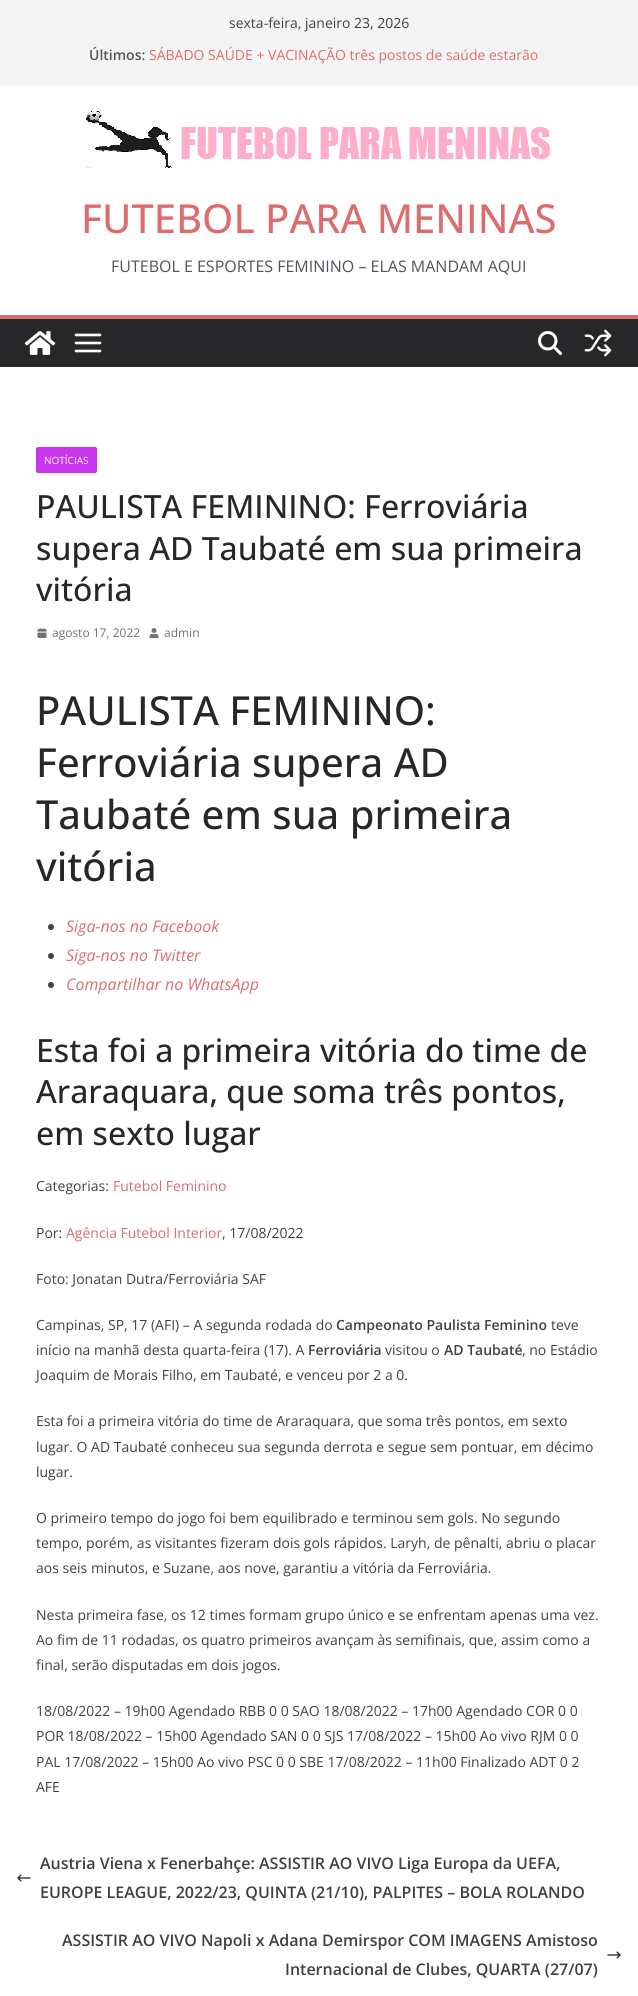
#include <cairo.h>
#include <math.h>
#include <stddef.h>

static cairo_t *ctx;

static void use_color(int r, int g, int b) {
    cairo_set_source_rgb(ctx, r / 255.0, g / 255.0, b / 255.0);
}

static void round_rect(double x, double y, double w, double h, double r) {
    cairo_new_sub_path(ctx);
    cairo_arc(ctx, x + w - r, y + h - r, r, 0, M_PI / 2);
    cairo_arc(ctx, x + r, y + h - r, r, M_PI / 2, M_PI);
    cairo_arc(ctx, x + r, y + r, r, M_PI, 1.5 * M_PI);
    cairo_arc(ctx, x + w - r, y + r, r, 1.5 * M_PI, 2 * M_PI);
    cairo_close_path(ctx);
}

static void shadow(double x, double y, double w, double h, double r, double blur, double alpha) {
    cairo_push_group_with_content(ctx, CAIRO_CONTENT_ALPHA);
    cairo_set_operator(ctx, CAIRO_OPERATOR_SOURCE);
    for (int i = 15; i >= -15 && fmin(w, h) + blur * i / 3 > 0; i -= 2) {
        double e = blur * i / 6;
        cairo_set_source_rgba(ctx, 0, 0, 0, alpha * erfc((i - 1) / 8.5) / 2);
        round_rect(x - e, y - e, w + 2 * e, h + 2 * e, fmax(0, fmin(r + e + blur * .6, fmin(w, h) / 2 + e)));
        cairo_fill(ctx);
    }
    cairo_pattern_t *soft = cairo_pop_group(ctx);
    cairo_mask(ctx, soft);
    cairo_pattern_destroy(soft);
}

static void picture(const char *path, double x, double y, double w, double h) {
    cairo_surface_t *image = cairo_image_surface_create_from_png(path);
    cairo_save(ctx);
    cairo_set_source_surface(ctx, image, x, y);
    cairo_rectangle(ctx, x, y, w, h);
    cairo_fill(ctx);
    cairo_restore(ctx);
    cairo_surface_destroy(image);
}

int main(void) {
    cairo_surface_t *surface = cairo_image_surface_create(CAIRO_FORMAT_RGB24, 638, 1996);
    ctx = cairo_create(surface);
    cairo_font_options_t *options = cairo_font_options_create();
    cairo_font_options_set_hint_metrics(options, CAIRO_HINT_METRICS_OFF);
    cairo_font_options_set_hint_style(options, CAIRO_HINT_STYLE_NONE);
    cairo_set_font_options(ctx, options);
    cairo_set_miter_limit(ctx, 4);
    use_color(255, 255, 255);
    cairo_paint(ctx);
    use_color(0, 0, 0);
    shadow(0, 0, 638, 85, 0, 1, 0.1);
    use_color(244, 244, 245);
    cairo_rectangle(ctx, 0, 0, 638, 85);
    cairo_fill(ctx);
    cairo_select_font_face(ctx, "Open Sans", CAIRO_FONT_SLANT_NORMAL, CAIRO_FONT_WEIGHT_NORMAL);
    cairo_set_font_size(ctx, 14);
    use_color(63, 63, 70);
    cairo_move_to(ctx, 229, 28);
    cairo_show_text(ctx, "sexta-feira, janeiro 23, 2026");
    cairo_select_font_face(ctx, "Open Sans SemiBold", CAIRO_FONT_SLANT_NORMAL, CAIRO_FONT_WEIGHT_NORMAL);
    use_color(85, 85, 85);
    cairo_move_to(ctx, 89, 60);
    cairo_show_text(ctx, "Últimos:");
    cairo_select_font_face(ctx, "Open Sans", CAIRO_FONT_SLANT_NORMAL, CAIRO_FONT_WEIGHT_NORMAL);
    use_color(221, 108, 108);
    cairo_move_to(ctx, 149, 60);
    cairo_show_text(ctx, "SÁBADO SAÚDE + VACINAÇÃO três postos de saúde estarão");
    picture("img1.png", 85, 111, 465, 57);
    cairo_select_font_face(ctx, "Open Sans Medium", CAIRO_FONT_SLANT_NORMAL, CAIRO_FONT_WEIGHT_NORMAL);
    cairo_set_font_size(ctx, 40);
    cairo_move_to(ctx, 81, 233);
    cairo_show_text(ctx, "FUTEBOL PARA MENINAS");
    cairo_select_font_face(ctx, "Open Sans", CAIRO_FONT_SLANT_NORMAL, CAIRO_FONT_WEIGHT_NORMAL);
    cairo_set_font_size(ctx, 16);
    use_color(82, 82, 91);
    cairo_move_to(ctx, 111, 272);
    cairo_show_text(ctx, "FUTEBOL E ESPORTES FEMININO – ELAS MANDAM AQUI");
    use_color(39, 39, 42);
    cairo_rectangle(ctx, 0, 319, 638, 48);
    cairo_fill(ctx);
    use_color(221, 108, 108);
    cairo_rectangle(ctx, 0, 315, 638, 4);
    cairo_fill(ctx);
    picture("img2.png", 24, 331, 32, 24);
    picture("img3.png", 74, 333, 28, 20);
    picture("img4.png", 538, 331, 24, 24);
    picture("img5.png", 584, 329, 28, 28);
    use_color(201, 53, 234);
    round_rect(36, 447, 61, 26, 2);
    cairo_fill(ctx);
    cairo_set_font_size(ctx, 10);
    use_color(255, 255, 255);
    cairo_move_to(ctx, 44, 464);
    cairo_show_text(ctx, "NOTÍCIAS");
    cairo_select_font_face(ctx, "Open Sans Medium", CAIRO_FONT_SLANT_NORMAL, CAIRO_FONT_WEIGHT_NORMAL);
    cairo_set_font_size(ctx, 32);
    use_color(39, 39, 42);
    cairo_move_to(ctx, 36, 518);
    cairo_show_text(ctx, "PAULISTA FEMININO: Ferroviária");
    cairo_move_to(ctx, 36, 560);
    cairo_show_text(ctx, "supera AD Taubaté em sua primeira");
    cairo_move_to(ctx, 36, 601);
    cairo_show_text(ctx, "vitória");
    picture("img6.png", 37, 628, 10, 10);
    cairo_select_font_face(ctx, "Open Sans", CAIRO_FONT_SLANT_NORMAL, CAIRO_FONT_WEIGHT_NORMAL);
    cairo_set_font_size(ctx, 12);
    use_color(113, 113, 122);
    cairo_move_to(ctx, 52, 637);
    cairo_show_text(ctx, "agosto 17, 2022");
    picture("img7.png", 149, 628, 10, 10);
    cairo_move_to(ctx, 164, 637);
    cairo_show_text(ctx, "admin");
    cairo_select_font_face(ctx, "Open Sans Medium", CAIRO_FONT_SLANT_NORMAL, CAIRO_FONT_WEIGHT_NORMAL);
    cairo_set_font_size(ctx, 40);
    use_color(39, 39, 42);
    cairo_move_to(ctx, 36, 725);
    cairo_show_text(ctx, "PAULISTA FEMININO:");
    cairo_move_to(ctx, 36, 777);
    cairo_show_text(ctx, "Ferroviária supera AD");
    cairo_move_to(ctx, 36, 829);
    cairo_show_text(ctx, "Taubaté em sua primeira");
    cairo_move_to(ctx, 36, 881);
    cairo_show_text(ctx, "vitória");
    use_color(68, 68, 68);
    cairo_new_path(ctx);
    cairo_arc(ctx, 51, 927, 3, 0, 2 * M_PI);
    cairo_fill(ctx);
    cairo_select_font_face(ctx, "Open Sans", CAIRO_FONT_SLANT_ITALIC, CAIRO_FONT_WEIGHT_NORMAL);
    cairo_set_font_size(ctx, 16);
    use_color(221, 108, 108);
    cairo_move_to(ctx, 66, 932);
    cairo_show_text(ctx, "Siga-nos no Facebook");
    use_color(68, 68, 68);
    cairo_new_path(ctx);
    cairo_arc(ctx, 51, 956, 3, 0, 2 * M_PI);
    cairo_fill(ctx);
    use_color(221, 108, 108);
    cairo_move_to(ctx, 66, 961);
    cairo_show_text(ctx, "Siga-nos no Twitter");
    use_color(68, 68, 68);
    cairo_new_path(ctx);
    cairo_arc(ctx, 51, 985, 3, 0, 2 * M_PI);
    cairo_fill(ctx);
    use_color(221, 108, 108);
    cairo_move_to(ctx, 66, 990);
    cairo_show_text(ctx, "Compartilhar no WhatsApp");
    cairo_select_font_face(ctx, "Open Sans Medium", CAIRO_FONT_SLANT_NORMAL, CAIRO_FONT_WEIGHT_NORMAL);
    cairo_set_font_size(ctx, 32);
    use_color(39, 39, 42);
    cairo_move_to(ctx, 36, 1062);
    cairo_show_text(ctx, "Esta foi a primeira vitória do time de");
    cairo_move_to(ctx, 36, 1103);
    cairo_show_text(ctx, "Araraquara, que soma três pontos,");
    cairo_move_to(ctx, 36, 1145);
    cairo_show_text(ctx, "em sexto lugar");
    cairo_select_font_face(ctx, "Open Sans", CAIRO_FONT_SLANT_NORMAL, CAIRO_FONT_WEIGHT_NORMAL);
    cairo_set_font_size(ctx, 14);
    use_color(63, 63, 70);
    cairo_move_to(ctx, 36, 1191);
    cairo_show_text(ctx, "Categorias:");
    use_color(221, 108, 108);
    cairo_move_to(ctx, 113, 1191);
    cairo_show_text(ctx, "Futebol Feminino");
    use_color(63, 63, 70);
    cairo_move_to(ctx, 36, 1238);
    cairo_show_text(ctx, "Por:");
    use_color(221, 108, 108);
    cairo_move_to(ctx, 66, 1238);
    cairo_show_text(ctx, "Agência Futebol Interior");
    use_color(63, 63, 70);
    cairo_move_to(ctx, 222, 1238);
    cairo_show_text(ctx, ", 17/08/2022");
    cairo_move_to(ctx, 36, 1284);
    cairo_show_text(ctx, "Foto: Jonatan Dutra/Ferroviária SAF");
    cairo_move_to(ctx, 36, 1330);
    cairo_show_text(ctx, "Campinas, SP, 17 (AFI) – A segunda rodada do");
    cairo_select_font_face(ctx, "Open Sans SemiBold", CAIRO_FONT_SLANT_NORMAL, CAIRO_FONT_WEIGHT_NORMAL);
    cairo_move_to(ctx, 336, 1330);
    cairo_show_text(ctx, "Campeonato Paulista Feminino");
    cairo_select_font_face(ctx, "Open Sans", CAIRO_FONT_SLANT_NORMAL, CAIRO_FONT_WEIGHT_NORMAL);
    cairo_move_to(ctx, 551, 1330);
    cairo_show_text(ctx, "teve");
    cairo_move_to(ctx, 36, 1355);
    cairo_show_text(ctx, "início na manhã desta quarta-feira (17). A");
    cairo_select_font_face(ctx, "Open Sans SemiBold", CAIRO_FONT_SLANT_NORMAL, CAIRO_FONT_WEIGHT_NORMAL);
    cairo_move_to(ctx, 308, 1355);
    cairo_show_text(ctx, "Ferroviária");
    cairo_select_font_face(ctx, "Open Sans", CAIRO_FONT_SLANT_NORMAL, CAIRO_FONT_WEIGHT_NORMAL);
    cairo_move_to(ctx, 385, 1355);
    cairo_show_text(ctx, "visitou o");
    cairo_select_font_face(ctx, "Open Sans SemiBold", CAIRO_FONT_SLANT_NORMAL, CAIRO_FONT_WEIGHT_NORMAL);
    cairo_move_to(ctx, 444, 1355);
    cairo_show_text(ctx, "AD Taubaté");
    cairo_select_font_face(ctx, "Open Sans", CAIRO_FONT_SLANT_NORMAL, CAIRO_FONT_WEIGHT_NORMAL);
    cairo_move_to(ctx, 522, 1355);
    cairo_show_text(ctx, ", no Estádio");
    cairo_move_to(ctx, 36, 1380);
    cairo_show_text(ctx, "Joaquim de Morais Filho, em Taubaté, e venceu por 2 a 0.");
    cairo_move_to(ctx, 36, 1426);
    cairo_show_text(ctx, "Esta foi a primeira vitória do time de Araraquara, que soma três pontos, em sexto");
    cairo_move_to(ctx, 36, 1452);
    cairo_show_text(ctx, "lugar. O AD Taubaté conheceu sua segunda derrota e segue sem pontuar, em décimo");
    cairo_move_to(ctx, 36, 1477);
    cairo_show_text(ctx, "lugar.");
    cairo_move_to(ctx, 36, 1523);
    cairo_show_text(ctx, "O primeiro tempo do jogo foi bem equilibrado e terminou sem gols. No segundo");
    cairo_move_to(ctx, 36, 1548);
    cairo_show_text(ctx, "tempo, porém, as visitantes fizeram dois gols rápidos. Laryh, de pênalti, abriu o placar");
    cairo_move_to(ctx, 36, 1573);
    cairo_show_text(ctx, "aos seis minutos, e Suzane, aos nove, garantiu a vitória da Ferroviária.");
    cairo_move_to(ctx, 36, 1620);
    cairo_show_text(ctx, "Nesta primeira fase, os 12 times formam grupo único e se enfrentam apenas uma vez.");
    cairo_move_to(ctx, 36, 1645);
    cairo_show_text(ctx, "Ao fim de 11 rodadas, os quatro primeiros avançam às semifinais, que, assim como a");
    cairo_move_to(ctx, 36, 1670);
    cairo_show_text(ctx, "final, serão disputadas em dois jogos.");
    cairo_move_to(ctx, 36, 1716);
    cairo_show_text(ctx, "18/08/2022 – 19h00 Agendado RBB 0 0 SAO 18/08/2022 – 17h00 Agendado COR 0 0");
    cairo_move_to(ctx, 36, 1741);
    cairo_show_text(ctx, "POR 18/08/2022 – 15h00 Agendado SAN 0 0 SJS 17/08/2022 – 15h00 Ao vivo RJM 0 0");
    cairo_move_to(ctx, 36, 1767);
    cairo_show_text(ctx, "PAL 17/08/2022 – 15h00 Ao vivo PSC 0 0 SBE 17/08/2022 – 11h00 Finalizado ADT 0 2");
    cairo_move_to(ctx, 36, 1792);
    cairo_show_text(ctx, "AFE");
    cairo_select_font_face(ctx, "Open Sans SemiBold", CAIRO_FONT_SLANT_NORMAL, CAIRO_FONT_WEIGHT_NORMAL);
    cairo_set_font_size(ctx, 16);
    cairo_move_to(ctx, 40, 1869);
    cairo_show_text(ctx, "Austria Viena x Fenerbahçe: ASSISTIR AO VIVO Liga Europa da UEFA,");
    picture("img8.png", 17, 1874, 14, 8);
    cairo_move_to(ctx, 40, 1898);
    cairo_show_text(ctx, "EUROPE LEAGUE, 2022/23, QUINTA (21/10), PALPITES – BOLA ROLANDO");
    cairo_move_to(ctx, 62, 1946);
    cairo_show_text(ctx, "ASSISTIR AO VIVO Napoli x Adana Demirspor COM IMAGENS Amistoso");
    picture("img9.png", 607, 1951, 14, 8);
    cairo_move_to(ctx, 285, 1975);
    cairo_show_text(ctx, "Internacional de Clubes, QUARTA (27/07)");
    cairo_surface_write_to_png(surface, "result.png");
    cairo_font_options_destroy(options);
    cairo_destroy(ctx);
    cairo_surface_destroy(surface);
    return 0;
}
